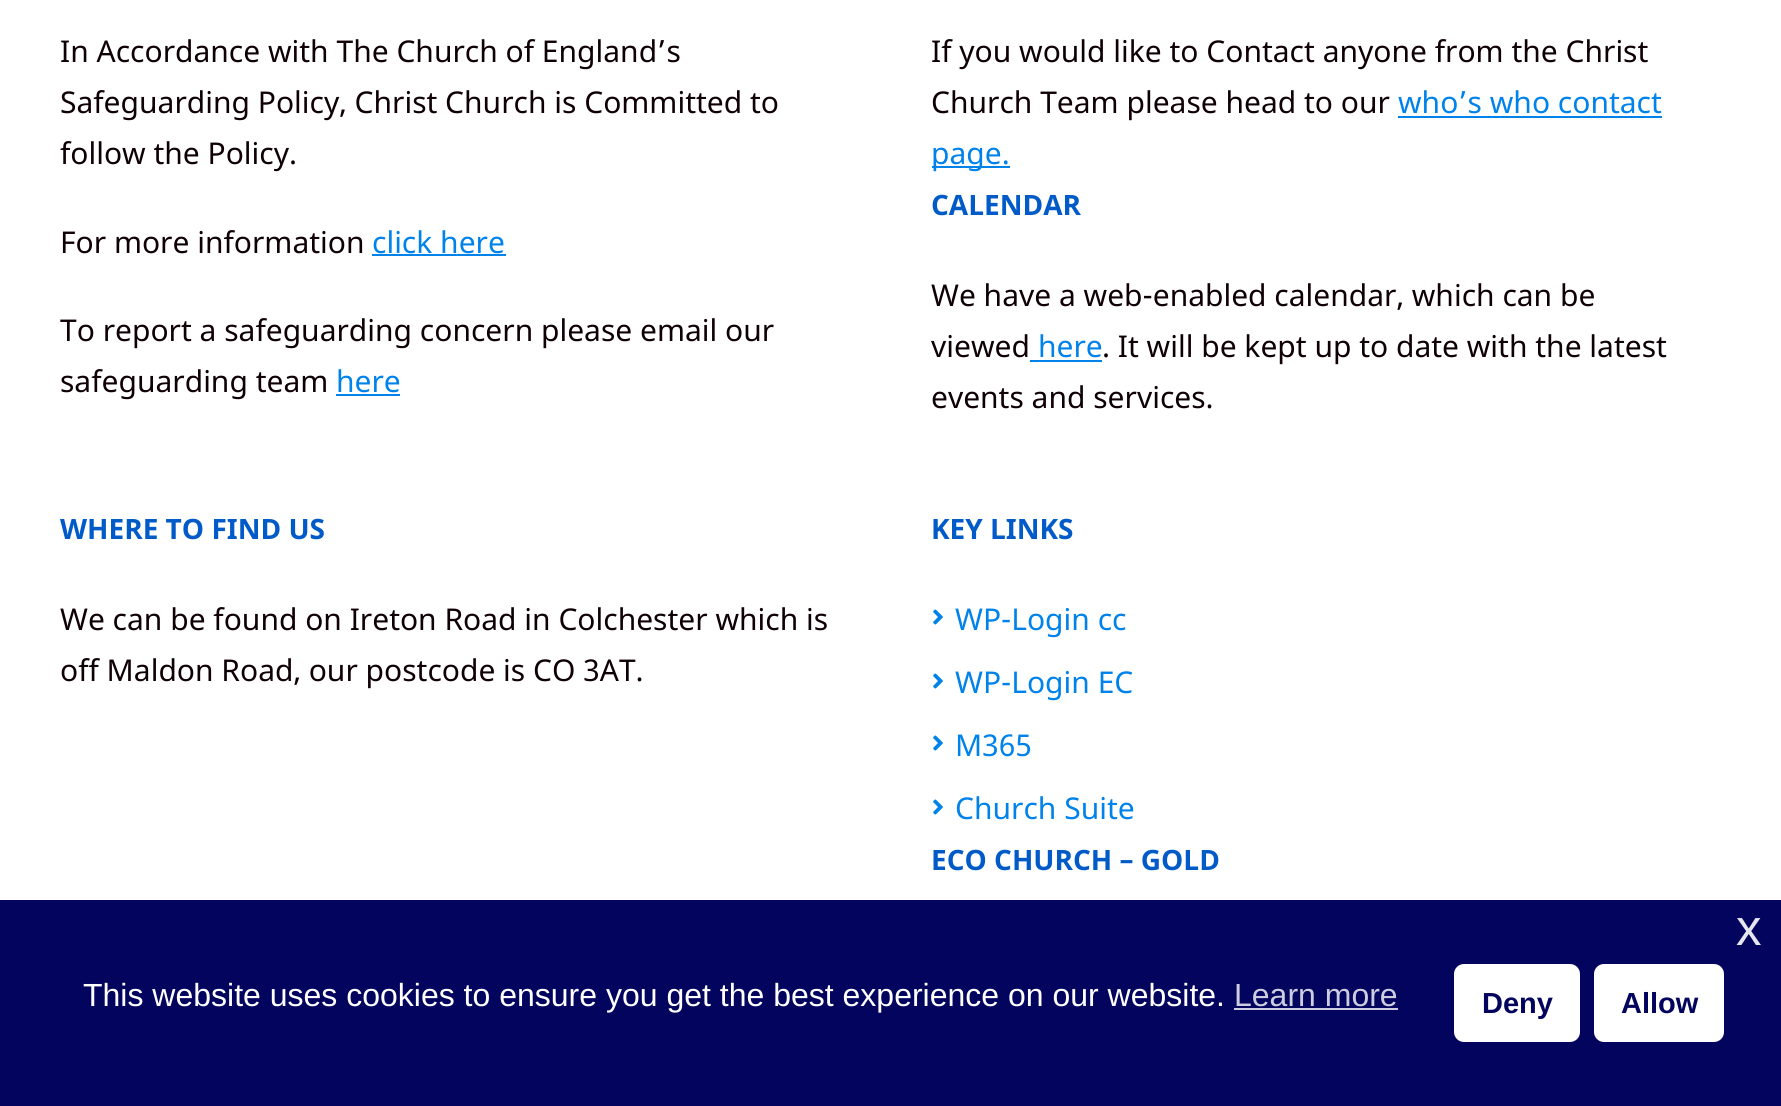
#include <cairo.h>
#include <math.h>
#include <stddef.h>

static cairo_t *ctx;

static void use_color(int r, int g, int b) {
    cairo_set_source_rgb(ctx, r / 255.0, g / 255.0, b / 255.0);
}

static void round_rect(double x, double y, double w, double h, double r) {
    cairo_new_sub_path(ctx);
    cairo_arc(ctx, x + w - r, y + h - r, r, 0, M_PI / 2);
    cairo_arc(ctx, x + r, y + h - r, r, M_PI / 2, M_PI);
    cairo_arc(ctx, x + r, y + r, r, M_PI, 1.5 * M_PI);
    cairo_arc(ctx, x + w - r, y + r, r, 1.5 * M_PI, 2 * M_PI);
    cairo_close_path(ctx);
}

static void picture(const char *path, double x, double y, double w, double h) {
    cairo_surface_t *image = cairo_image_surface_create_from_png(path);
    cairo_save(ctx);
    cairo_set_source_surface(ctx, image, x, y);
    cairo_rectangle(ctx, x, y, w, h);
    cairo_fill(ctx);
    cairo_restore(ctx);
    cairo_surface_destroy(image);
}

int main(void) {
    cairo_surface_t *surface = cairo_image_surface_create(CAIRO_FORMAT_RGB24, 1781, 1106);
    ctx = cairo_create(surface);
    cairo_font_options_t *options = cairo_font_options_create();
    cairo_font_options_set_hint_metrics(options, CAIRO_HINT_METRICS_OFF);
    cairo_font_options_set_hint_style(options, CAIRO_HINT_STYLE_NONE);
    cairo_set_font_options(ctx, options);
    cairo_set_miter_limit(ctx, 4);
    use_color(255, 255, 255);
    cairo_paint(ctx);
    cairo_select_font_face(ctx, "Noto Sans", CAIRO_FONT_SLANT_NORMAL, CAIRO_FONT_WEIGHT_NORMAL);
    cairo_set_font_size(ctx, 30);
    use_color(15, 0, 5);
    cairo_move_to(ctx, 60, 62);
    cairo_show_text(ctx, "In Accordance with The Church of England’s");
    cairo_move_to(ctx, 60, 113);
    cairo_show_text(ctx, "Safeguarding Policy, Christ Church is Committed to");
    cairo_move_to(ctx, 60, 164);
    cairo_show_text(ctx, "follow the Policy.");
    cairo_move_to(ctx, 60, 253);
    cairo_show_text(ctx, "For more information");
    use_color(0, 130, 235);
    cairo_move_to(ctx, 372, 253);
    cairo_show_text(ctx, "click here");
    cairo_rectangle(ctx, 372, 254, 134, 2);
    cairo_fill(ctx);
    use_color(15, 0, 5);
    cairo_move_to(ctx, 60, 341);
    cairo_show_text(ctx, "To report a safeguarding concern please email our");
    cairo_move_to(ctx, 60, 392);
    cairo_show_text(ctx, "safeguarding team");
    use_color(0, 130, 235);
    cairo_move_to(ctx, 336, 392);
    cairo_show_text(ctx, "here");
    cairo_rectangle(ctx, 336, 394, 64, 2);
    cairo_fill(ctx);
    use_color(15, 0, 5);
    cairo_move_to(ctx, 931, 62);
    cairo_show_text(ctx, "If you would like to Contact anyone from the Christ");
    cairo_move_to(ctx, 931, 113);
    cairo_show_text(ctx, "Church Team please head to our");
    use_color(0, 130, 235);
    cairo_move_to(ctx, 1398, 113);
    cairo_show_text(ctx, "who’s who contact");
    cairo_rectangle(ctx, 1398, 116, 264, 2);
    cairo_fill(ctx);
    cairo_rectangle(ctx, 932, 166, 78, 2);
    cairo_fill(ctx);
    cairo_move_to(ctx, 931, 164);
    cairo_show_text(ctx, "page.");
    cairo_select_font_face(ctx, "Noto Sans", CAIRO_FONT_SLANT_NORMAL, CAIRO_FONT_WEIGHT_BOLD);
    cairo_set_font_size(ctx, 28);
    use_color(0, 90, 200);
    cairo_move_to(ctx, 931, 215);
    cairo_show_text(ctx, "CALENDAR");
    cairo_select_font_face(ctx, "Noto Sans", CAIRO_FONT_SLANT_NORMAL, CAIRO_FONT_WEIGHT_NORMAL);
    cairo_set_font_size(ctx, 30);
    use_color(15, 0, 5);
    cairo_move_to(ctx, 931, 306);
    cairo_show_text(ctx, "We have a web-enabled calendar, which can be");
    cairo_move_to(ctx, 931, 357);
    cairo_show_text(ctx, "viewed");
    use_color(0, 130, 235);
    cairo_move_to(ctx, 1038, 357);
    cairo_show_text(ctx, "here");
    cairo_rectangle(ctx, 1030, 360, 72, 2);
    cairo_fill(ctx);
    use_color(15, 0, 5);
    cairo_move_to(ctx, 1102, 357);
    cairo_show_text(ctx, ". It will be kept up to date with the latest");
    cairo_move_to(ctx, 931, 408);
    cairo_show_text(ctx, "events and services.");
    cairo_select_font_face(ctx, "Noto Sans", CAIRO_FONT_SLANT_NORMAL, CAIRO_FONT_WEIGHT_BOLD);
    cairo_set_font_size(ctx, 28);
    use_color(0, 90, 200);
    cairo_move_to(ctx, 60, 539);
    cairo_show_text(ctx, "WHERE TO FIND US");
    cairo_select_font_face(ctx, "Noto Sans", CAIRO_FONT_SLANT_NORMAL, CAIRO_FONT_WEIGHT_NORMAL);
    cairo_set_font_size(ctx, 30);
    use_color(15, 0, 5);
    cairo_move_to(ctx, 60, 630);
    cairo_show_text(ctx, "We can be found on Ireton Road in Colchester which is");
    cairo_move_to(ctx, 60, 681);
    cairo_show_text(ctx, "off Maldon Road, our postcode is CO 3AT.");
    cairo_select_font_face(ctx, "Noto Sans", CAIRO_FONT_SLANT_NORMAL, CAIRO_FONT_WEIGHT_BOLD);
    cairo_set_font_size(ctx, 28);
    use_color(0, 90, 200);
    cairo_move_to(ctx, 931, 539);
    cairo_show_text(ctx, "KEY LINKS");
    picture("img1.png", 933, 609, 10, 16);
    cairo_select_font_face(ctx, "Noto Sans", CAIRO_FONT_SLANT_NORMAL, CAIRO_FONT_WEIGHT_NORMAL);
    cairo_set_font_size(ctx, 30);
    use_color(0, 130, 235);
    cairo_move_to(ctx, 955, 630);
    cairo_show_text(ctx, "WP-Login cc");
    picture("img1.png", 933, 673, 10, 16);
    cairo_move_to(ctx, 955, 693);
    cairo_show_text(ctx, "WP-Login EC");
    picture("img1.png", 933, 735, 10, 16);
    cairo_move_to(ctx, 955, 756);
    cairo_show_text(ctx, "M365");
    picture("img1.png", 933, 799, 10, 16);
    cairo_move_to(ctx, 955, 819);
    cairo_show_text(ctx, "Church Suite");
    cairo_select_font_face(ctx, "Noto Sans", CAIRO_FONT_SLANT_NORMAL, CAIRO_FONT_WEIGHT_BOLD);
    cairo_set_font_size(ctx, 28);
    use_color(0, 90, 200);
    cairo_move_to(ctx, 931, 870);
    cairo_show_text(ctx, "ECO CHURCH – GOLD");
    use_color(3, 4, 94);
    cairo_rectangle(ctx, 0, 900, 1781, 206);
    cairo_fill(ctx);
    cairo_select_font_face(ctx, "Liberation Sans", CAIRO_FONT_SLANT_NORMAL, CAIRO_FONT_WEIGHT_NORMAL);
    cairo_set_font_size(ctx, 51);
    use_color(230, 230, 239);
    cairo_move_to(ctx, 1736, 945);
    cairo_show_text(ctx, "x");
    cairo_set_font_size(ctx, 32);
    use_color(255, 255, 255);
    cairo_move_to(ctx, 83, 1006);
    cairo_show_text(ctx, "This website uses cookies to ensure you get the best experience on our website.");
    use_color(205, 205, 223);
    cairo_move_to(ctx, 1234, 1006);
    cairo_show_text(ctx, "Learn more");
    cairo_rectangle(ctx, 1234, 1008, 164, 2);
    cairo_fill(ctx);
    use_color(255, 255, 255);
    round_rect(1454, 964, 126, 78, 10);
    cairo_fill(ctx);
    cairo_select_font_face(ctx, "Liberation Sans", CAIRO_FONT_SLANT_NORMAL, CAIRO_FONT_WEIGHT_BOLD);
    cairo_set_font_size(ctx, 29);
    use_color(3, 4, 94);
    cairo_move_to(ctx, 1482, 1013);
    cairo_show_text(ctx, "Deny");
    use_color(255, 255, 255);
    round_rect(1594, 964, 130, 78, 10);
    cairo_fill(ctx);
    use_color(3, 4, 94);
    cairo_move_to(ctx, 1621, 1013);
    cairo_show_text(ctx, "Allow");
    cairo_surface_write_to_png(surface, "result.png");
    cairo_font_options_destroy(options);
    cairo_destroy(ctx);
    cairo_surface_destroy(surface);
    return 0;
}
